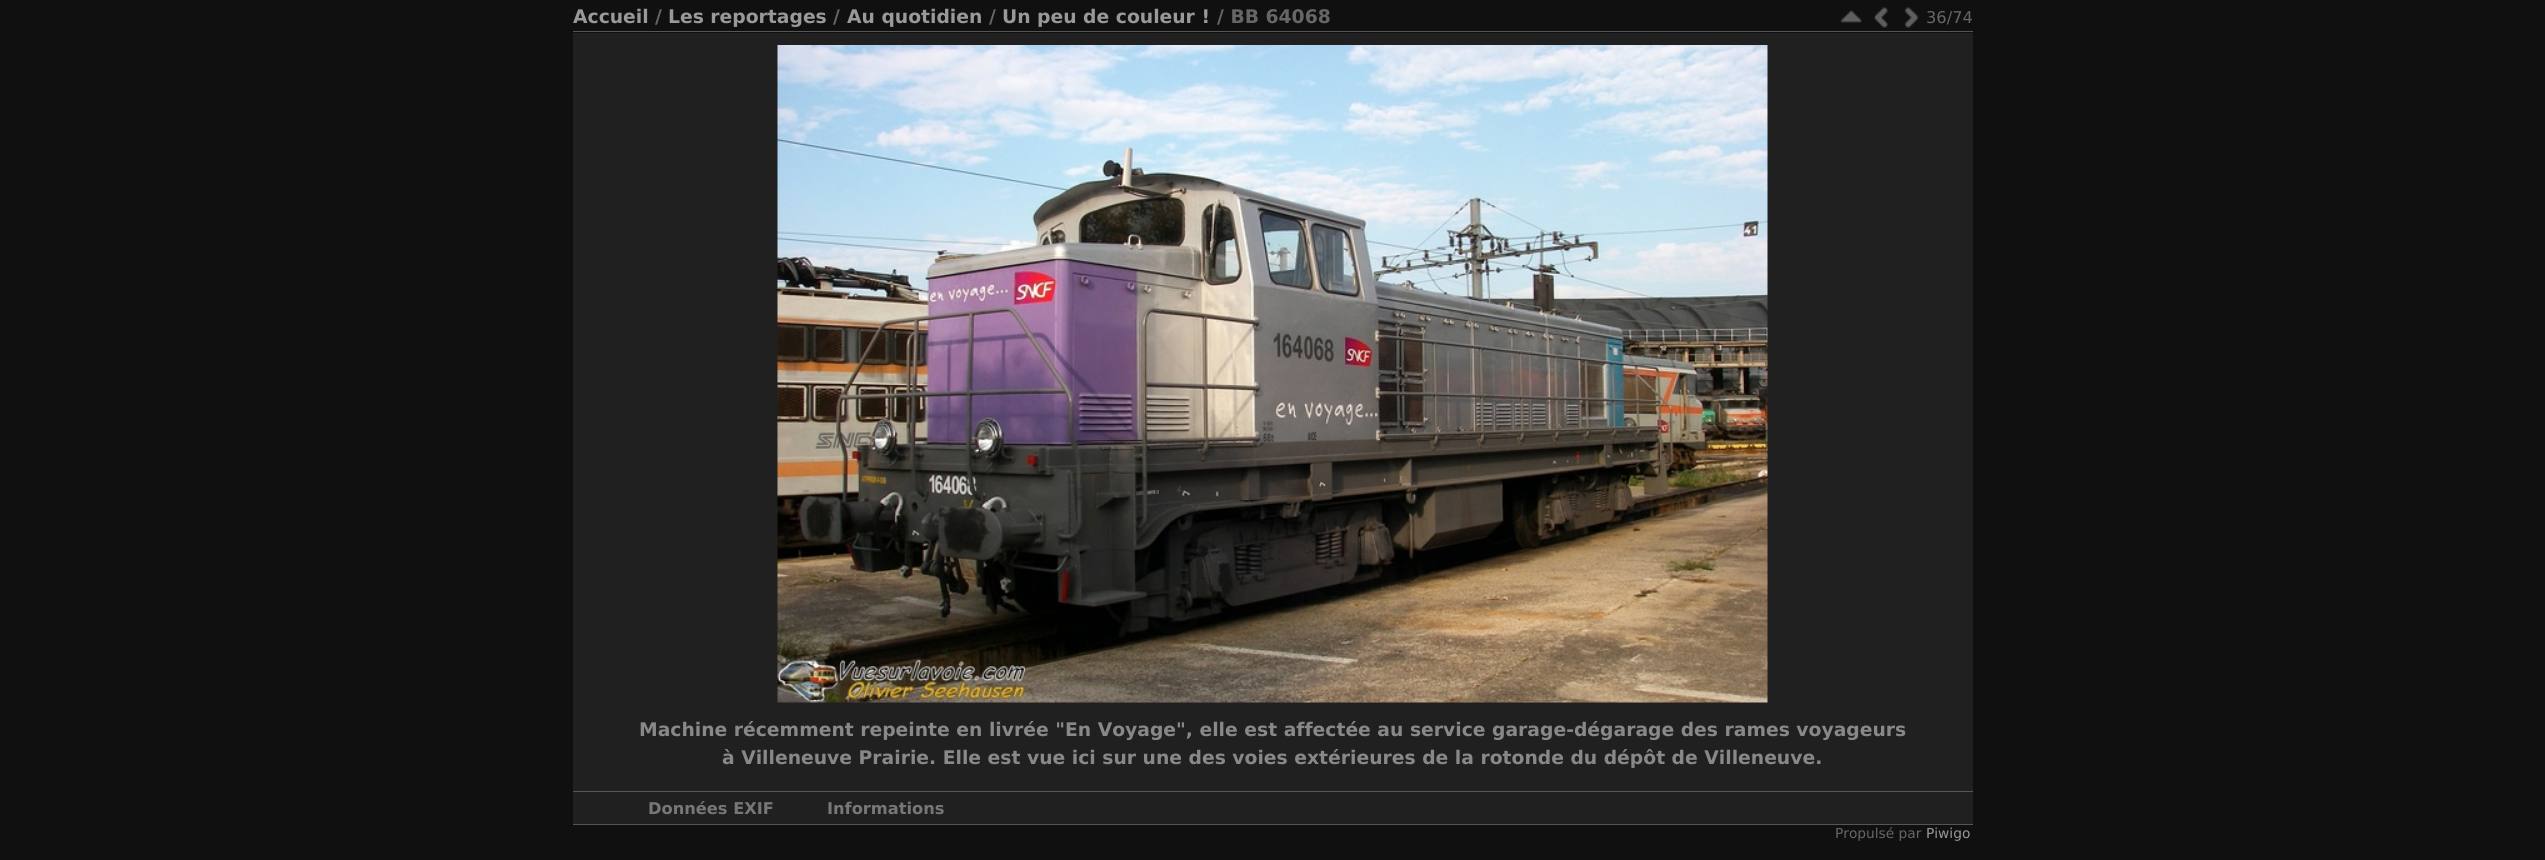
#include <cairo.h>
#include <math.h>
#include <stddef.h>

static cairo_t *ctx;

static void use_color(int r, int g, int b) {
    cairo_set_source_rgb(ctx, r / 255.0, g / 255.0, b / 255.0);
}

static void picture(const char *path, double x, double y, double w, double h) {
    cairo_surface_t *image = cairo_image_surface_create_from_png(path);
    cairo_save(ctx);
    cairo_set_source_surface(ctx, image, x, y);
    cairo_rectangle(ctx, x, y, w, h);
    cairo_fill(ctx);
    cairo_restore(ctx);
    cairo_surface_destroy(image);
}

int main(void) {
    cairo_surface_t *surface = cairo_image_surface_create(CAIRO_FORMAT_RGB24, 2545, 860);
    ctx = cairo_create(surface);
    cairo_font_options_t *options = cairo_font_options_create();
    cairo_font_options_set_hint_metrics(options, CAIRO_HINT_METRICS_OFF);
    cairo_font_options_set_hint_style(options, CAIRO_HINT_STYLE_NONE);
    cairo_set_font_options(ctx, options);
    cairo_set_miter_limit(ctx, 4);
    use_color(16, 16, 16);
    cairo_paint(ctx);
    cairo_select_font_face(ctx, "DejaVu Sans", CAIRO_FONT_SLANT_NORMAL, CAIRO_FONT_WEIGHT_BOLD);
    cairo_set_font_size(ctx, 18.75);
    use_color(153, 153, 153);
    cairo_move_to(ctx, 573, 23);
    cairo_show_text(ctx, "Accueil");
    use_color(102, 102, 102);
    cairo_move_to(ctx, 655, 23);
    cairo_show_text(ctx, "/");
    use_color(153, 153, 153);
    cairo_move_to(ctx, 668, 23);
    cairo_show_text(ctx, "Les reportages");
    use_color(102, 102, 102);
    cairo_move_to(ctx, 833, 23);
    cairo_show_text(ctx, "/");
    use_color(153, 153, 153);
    cairo_move_to(ctx, 847, 23);
    cairo_show_text(ctx, "Au quotidien");
    use_color(102, 102, 102);
    cairo_move_to(ctx, 989, 23);
    cairo_show_text(ctx, "/");
    use_color(153, 153, 153);
    cairo_move_to(ctx, 1002, 23);
    cairo_show_text(ctx, "Un peu de couleur !");
    use_color(102, 102, 102);
    cairo_move_to(ctx, 1217, 23);
    cairo_show_text(ctx, "/ BB 64068");
    picture("img1.png", 1840, 10, 22, 13);
    picture("img2.png", 1874, 7, 14, 21);
    picture("img3.png", 1904, 7, 15, 21);
    cairo_select_font_face(ctx, "DejaVu Sans", CAIRO_FONT_SLANT_NORMAL, CAIRO_FONT_WEIGHT_NORMAL);
    cairo_set_font_size(ctx, 16.25);
    cairo_move_to(ctx, 1926, 23);
    cairo_show_text(ctx, "36/74");
    use_color(32, 32, 32);
    cairo_rectangle(ctx, 573, 33, 1400, 791);
    cairo_fill(ctx);
    use_color(85, 85, 85);
    cairo_rectangle(ctx, 573, 31, 1400, 1);
    cairo_fill(ctx);
    cairo_rectangle(ctx, 573, 824, 1400, 1);
    cairo_fill(ctx);
    picture("img4.png", 777, 45, 991, 658);
    cairo_select_font_face(ctx, "DejaVu Sans", CAIRO_FONT_SLANT_NORMAL, CAIRO_FONT_WEIGHT_BOLD);
    cairo_set_font_size(ctx, 18.75);
    use_color(136, 136, 136);
    cairo_move_to(ctx, 639, 736);
    cairo_show_text(ctx, "Machine récemment repeinte en livrée \"En Voyage\", elle est affectée au service garage-dégarage des rames voyageurs");
    cairo_move_to(ctx, 722, 764);
    cairo_show_text(ctx, "à Villeneuve Prairie. Elle est vue ici sur une des voies extérieures de la rotonde du dépôt de Villeneuve.");
    use_color(85, 85, 85);
    cairo_rectangle(ctx, 573, 791, 1400, 1);
    cairo_fill(ctx);
    cairo_set_font_size(ctx, 16.25);
    use_color(119, 119, 119);
    cairo_move_to(ctx, 648, 814);
    cairo_show_text(ctx, "Données EXIF");
    cairo_move_to(ctx, 827, 814);
    cairo_show_text(ctx, "Informations");
    cairo_select_font_face(ctx, "DejaVu Sans", CAIRO_FONT_SLANT_NORMAL, CAIRO_FONT_WEIGHT_NORMAL);
    cairo_set_font_size(ctx, 13.75);
    use_color(102, 102, 102);
    cairo_move_to(ctx, 1835, 838);
    cairo_show_text(ctx, "Propulsé par");
    use_color(153, 153, 153);
    cairo_move_to(ctx, 1926, 838);
    cairo_show_text(ctx, "Piwigo");
    cairo_surface_write_to_png(surface, "result.png");
    cairo_font_options_destroy(options);
    cairo_destroy(ctx);
    cairo_surface_destroy(surface);
    return 0;
}
